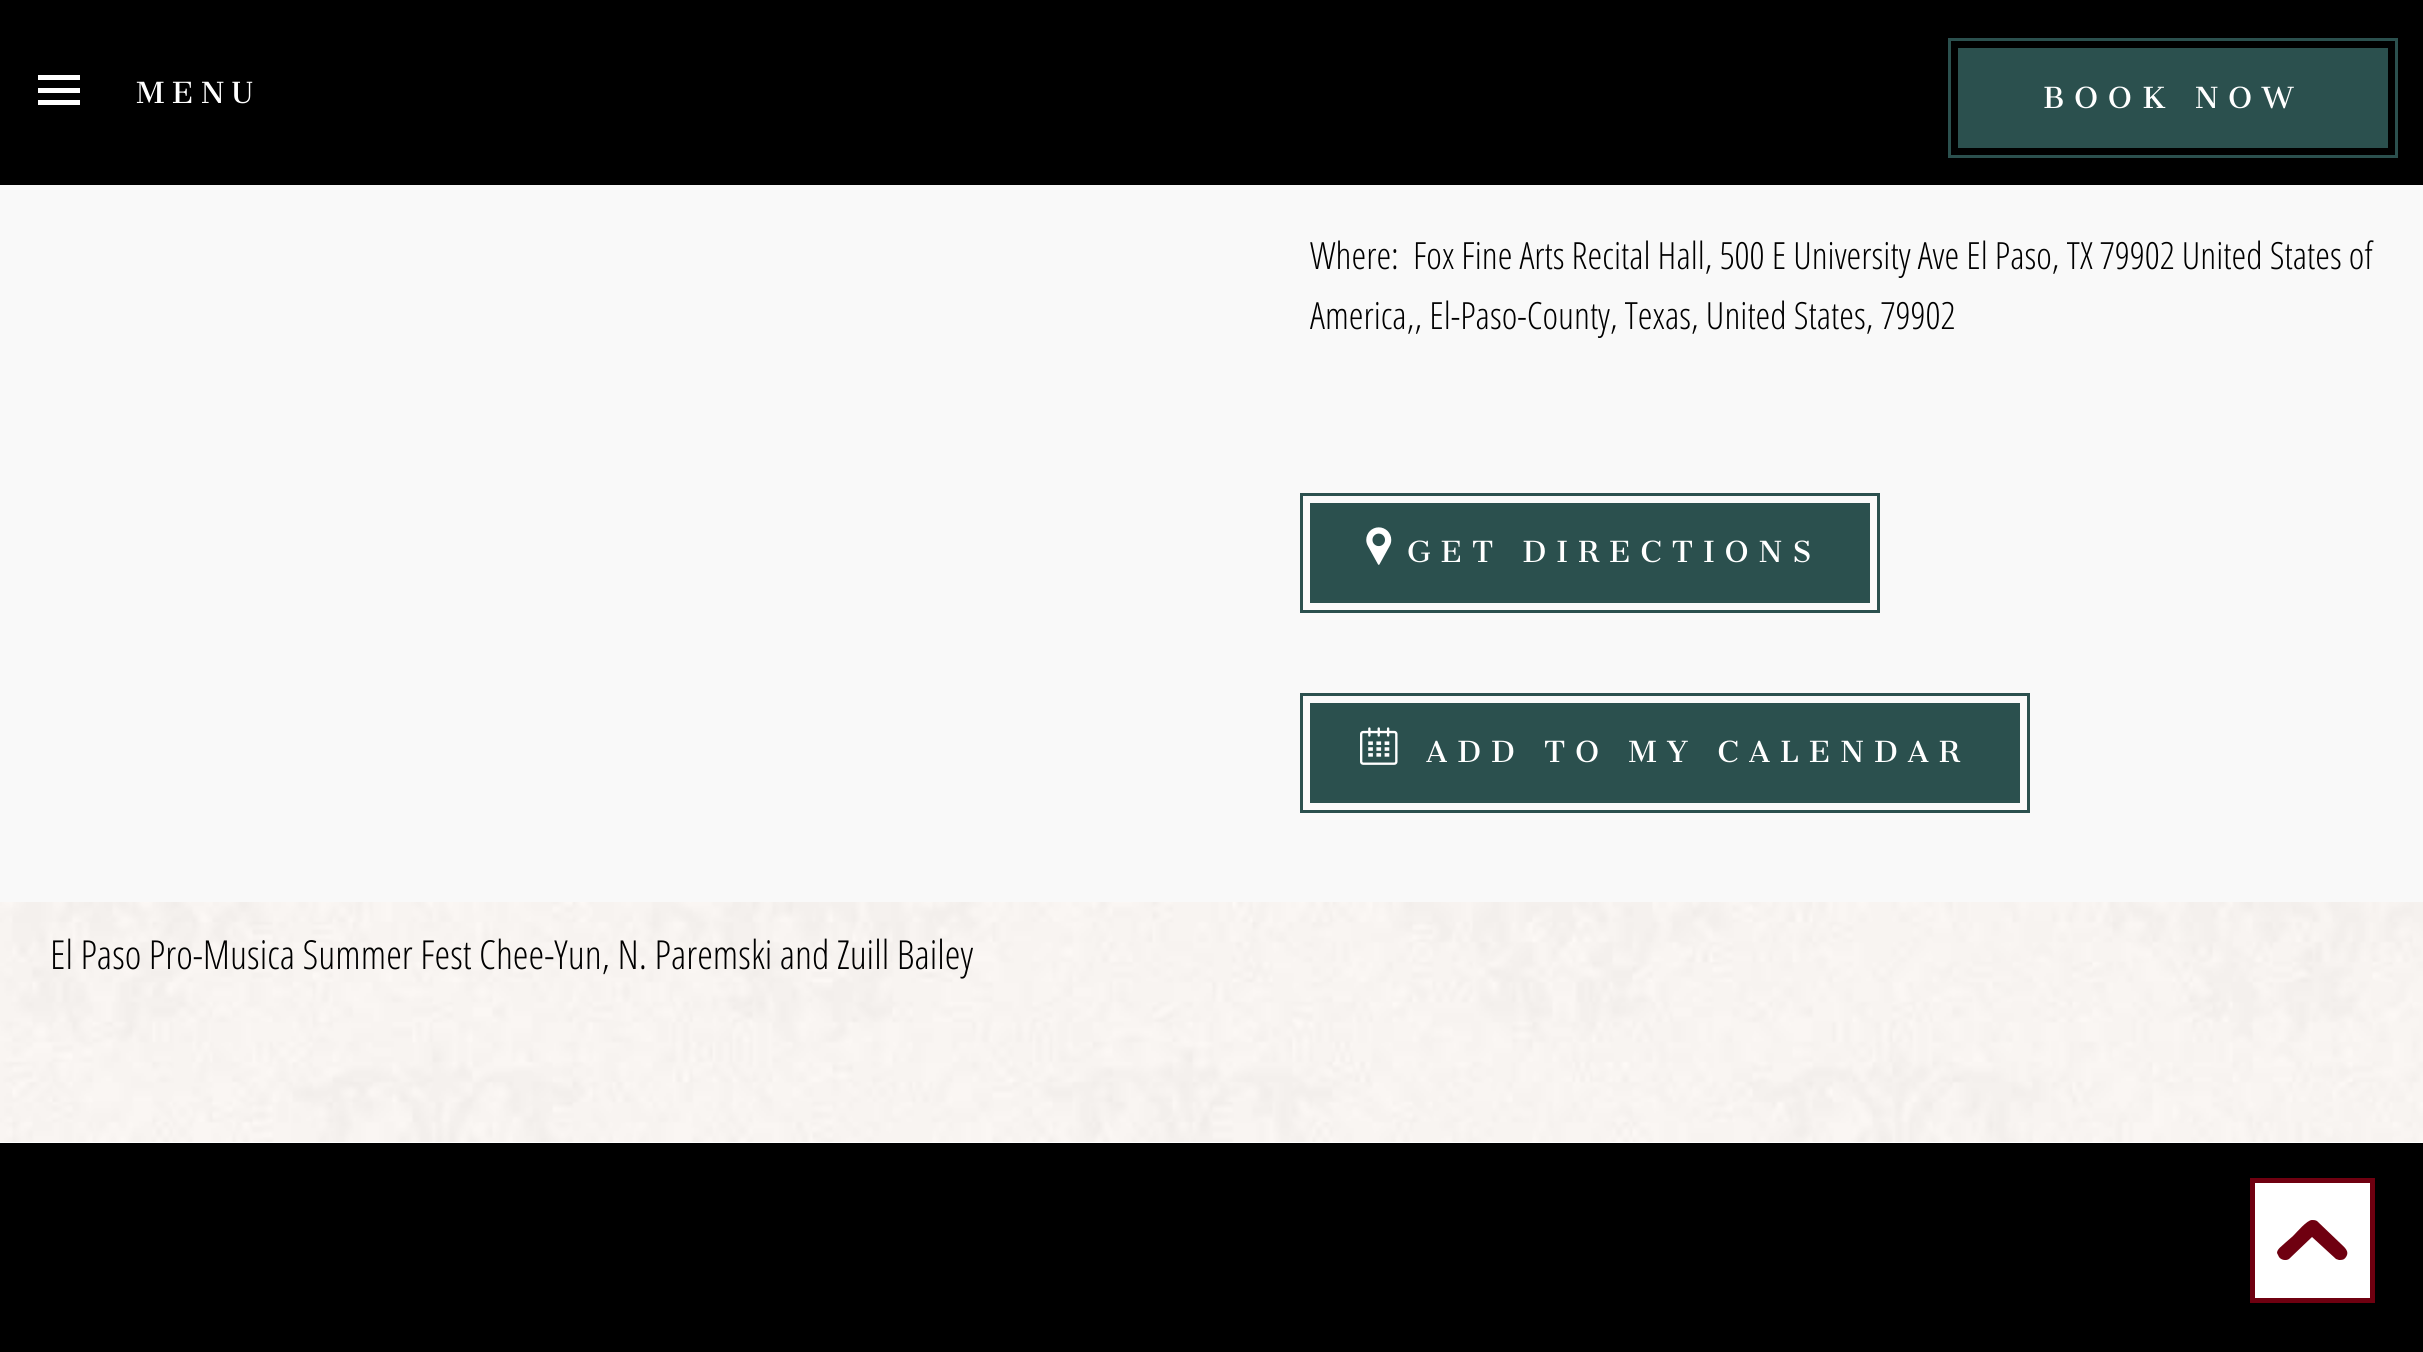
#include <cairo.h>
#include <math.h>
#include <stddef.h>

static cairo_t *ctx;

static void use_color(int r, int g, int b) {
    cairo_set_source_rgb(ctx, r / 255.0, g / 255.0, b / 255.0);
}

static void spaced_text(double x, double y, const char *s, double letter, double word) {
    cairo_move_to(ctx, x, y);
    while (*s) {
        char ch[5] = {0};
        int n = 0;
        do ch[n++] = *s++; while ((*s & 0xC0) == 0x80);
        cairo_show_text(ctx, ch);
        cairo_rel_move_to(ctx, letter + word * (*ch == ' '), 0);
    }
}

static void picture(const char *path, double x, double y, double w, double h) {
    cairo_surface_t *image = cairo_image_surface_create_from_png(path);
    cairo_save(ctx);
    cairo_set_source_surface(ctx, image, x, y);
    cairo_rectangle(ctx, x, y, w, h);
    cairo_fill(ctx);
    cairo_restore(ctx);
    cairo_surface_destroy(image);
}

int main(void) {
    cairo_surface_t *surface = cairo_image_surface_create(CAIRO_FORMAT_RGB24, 2423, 1352);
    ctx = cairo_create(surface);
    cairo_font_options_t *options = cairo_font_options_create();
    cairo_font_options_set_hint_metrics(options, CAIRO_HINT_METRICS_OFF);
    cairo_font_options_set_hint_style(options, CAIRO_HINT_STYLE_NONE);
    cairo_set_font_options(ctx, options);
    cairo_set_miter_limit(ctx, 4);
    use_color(249, 249, 249);
    cairo_paint(ctx);
    use_color(0, 0, 0);
    cairo_rectangle(ctx, 0, 0, 2423, 185);
    cairo_fill(ctx);
    use_color(255, 255, 255);
    cairo_rectangle(ctx, 38, 75, 42, 5);
    cairo_fill(ctx);
    cairo_rectangle(ctx, 38, 88, 42, 5);
    cairo_fill(ctx);
    cairo_rectangle(ctx, 38, 100, 42, 5);
    cairo_fill(ctx);
    cairo_select_font_face(ctx, "Sree Krushnadevaraya", CAIRO_FONT_SLANT_NORMAL, CAIRO_FONT_WEIGHT_NORMAL);
    cairo_set_font_size(ctx, 37.5);
    spaced_text(136, 103, "MENU", 7.5, 0);
    use_color(43, 80, 78);
    cairo_rectangle(ctx, 1958, 48, 430, 100);
    cairo_fill(ctx);
    cairo_rectangle(ctx, 1949.5, 39.5, 447, 117);
    cairo_set_line_width(ctx, 3);
    cairo_stroke(ctx);
    use_color(255, 255, 255);
    spaced_text(2043, 108, "BOOK NOW", 10, 0);
    cairo_select_font_face(ctx, "Open Sans Condensed Light", CAIRO_FONT_SLANT_NORMAL, CAIRO_FONT_WEIGHT_NORMAL);
    use_color(0, 0, 0);
    cairo_move_to(ctx, 1310, 269);
    cairo_show_text(ctx, "Where:");
    cairo_move_to(ctx, 1413, 269);
    cairo_show_text(ctx, "Fox Fine Arts Recital Hall, 500 E University Ave El Paso, TX 79902 United States of");
    cairo_move_to(ctx, 1310, 329);
    cairo_show_text(ctx, "America,, El-Paso-County, Texas, United States, 79902");
    use_color(43, 80, 78);
    cairo_rectangle(ctx, 1310, 503, 560, 100);
    cairo_fill(ctx);
    picture("img1.png", 1366, 527, 26, 38);
    cairo_rectangle(ctx, 1301.5, 494.5, 577, 117);
    cairo_stroke(ctx);
    cairo_select_font_face(ctx, "Sree Krushnadevaraya", CAIRO_FONT_SLANT_NORMAL, CAIRO_FONT_WEIGHT_NORMAL);
    use_color(255, 255, 255);
    spaced_text(1407, 562, "GET DIRECTIONS", 10, 0);
    use_color(43, 80, 78);
    cairo_rectangle(ctx, 1310, 703, 710, 100);
    cairo_fill(ctx);
    picture("img2.png", 1360, 727, 38, 38);
    cairo_rectangle(ctx, 1301.5, 694.5, 727, 117);
    cairo_stroke(ctx);
    use_color(255, 255, 255);
    spaced_text(1426, 762, "ADD TO MY CALENDAR", 10, 0);
    cairo_rectangle(ctx, 0, 1142, 2423, 1);
    cairo_fill(ctx);
    picture("img3.png", 0, 902, 2423, 240);
    cairo_select_font_face(ctx, "Open Sans Condensed Light", CAIRO_FONT_SLANT_NORMAL, CAIRO_FONT_WEIGHT_NORMAL);
    cairo_set_font_size(ctx, 40);
    use_color(0, 0, 0);
    cairo_move_to(ctx, 50, 969);
    cairo_show_text(ctx, "El Paso Pro-Musica Summer Fest Chee-Yun, N. Paremski and Zuill Bailey");
    cairo_rectangle(ctx, 0, 1143, 2423, 209);
    cairo_fill(ctx);
    use_color(255, 255, 255);
    cairo_rectangle(ctx, 2252.5, 1180.5, 120, 120);
    cairo_fill_preserve(ctx);
    use_color(111, 0, 16);
    cairo_set_line_width(ctx, 5);
    cairo_stroke(ctx);
    cairo_new_path(ctx);
    cairo_move_to(ctx, 2277, 1253);
    cairo_curve_to(ctx, 2277, 1249, 2282, 1246, 2285, 1243);
    cairo_line_to(ctx, 2293, 1236);
    cairo_curve_to(ctx, 2297, 1232, 2307, 1220, 2312, 1220);
    cairo_curve_to(ctx, 2314, 1220, 2315, 1220, 2317, 1221);
    cairo_line_to(ctx, 2340, 1243);
    cairo_curve_to(ctx, 2344, 1247, 2350, 1251, 2346, 1257);
    cairo_curve_to(ctx, 2344, 1260, 2342, 1260, 2339, 1260);
    cairo_line_to(ctx, 2336, 1259);
    cairo_line_to(ctx, 2312, 1237);
    cairo_line_to(ctx, 2289, 1259);
    cairo_curve_to(ctx, 2286, 1261, 2281, 1260, 2279, 1257);
    cairo_close_path(ctx);
    cairo_fill(ctx);
    cairo_surface_write_to_png(surface, "result.png");
    cairo_font_options_destroy(options);
    cairo_destroy(ctx);
    cairo_surface_destroy(surface);
    return 0;
}
